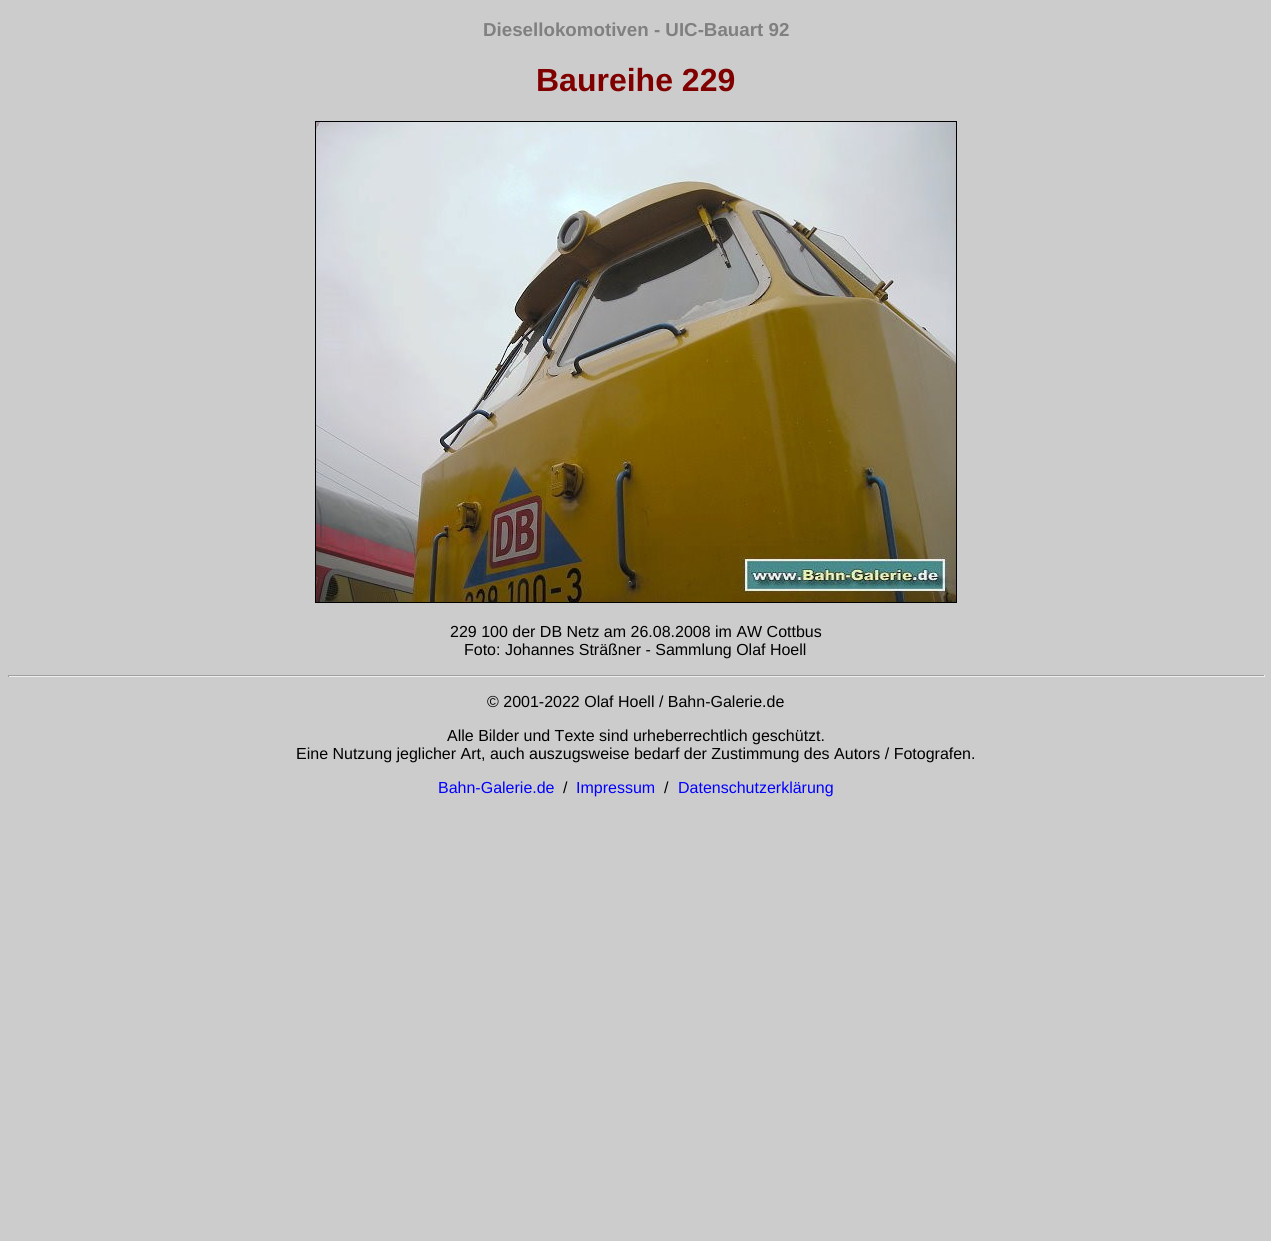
#include <cairo.h>
#include <math.h>
#include <stddef.h>

static cairo_t *ctx;

static void use_color(int r, int g, int b) {
    cairo_set_source_rgb(ctx, r / 255.0, g / 255.0, b / 255.0);
}

static void picture(const char *path, double x, double y, double w, double h) {
    cairo_surface_t *image = cairo_image_surface_create_from_png(path);
    cairo_save(ctx);
    cairo_set_source_surface(ctx, image, x, y);
    cairo_rectangle(ctx, x, y, w, h);
    cairo_fill(ctx);
    cairo_restore(ctx);
    cairo_surface_destroy(image);
}

int main(void) {
    cairo_surface_t *surface = cairo_image_surface_create(CAIRO_FORMAT_RGB24, 1271, 1241);
    ctx = cairo_create(surface);
    cairo_font_options_t *options = cairo_font_options_create();
    cairo_font_options_set_hint_metrics(options, CAIRO_HINT_METRICS_OFF);
    cairo_font_options_set_hint_style(options, CAIRO_HINT_STYLE_NONE);
    cairo_set_font_options(ctx, options);
    cairo_set_miter_limit(ctx, 4);
    use_color(204, 204, 204);
    cairo_paint(ctx);
    cairo_select_font_face(ctx, "Liberation Sans", CAIRO_FONT_SLANT_NORMAL, CAIRO_FONT_WEIGHT_BOLD);
    cairo_set_font_size(ctx, 18.75);
    use_color(128, 128, 128);
    cairo_move_to(ctx, 483, 36);
    cairo_show_text(ctx, "Diesellokomotiven - UIC-Bauart 92");
    cairo_set_font_size(ctx, 32);
    use_color(128, 0, 0);
    cairo_move_to(ctx, 536, 91);
    cairo_show_text(ctx, "Baureihe 229");
    cairo_rectangle(ctx, 315.5, 121.5, 641, 481);
    use_color(0, 0, 0);
    cairo_set_line_width(ctx, 1);
    cairo_stroke(ctx);
    picture("img1.png", 316, 122, 640, 480);
    cairo_select_font_face(ctx, "Liberation Sans", CAIRO_FONT_SLANT_NORMAL, CAIRO_FONT_WEIGHT_NORMAL);
    cairo_set_font_size(ctx, 16);
    cairo_move_to(ctx, 450, 637);
    cairo_show_text(ctx, "229 100 der DB Netz am 26.08.2008 im AW Cottbus");
    cairo_move_to(ctx, 464, 655);
    cairo_show_text(ctx, "Foto: Johannes Sträßner - Sammlung Olaf Hoell");
    use_color(159, 159, 159);
    cairo_rectangle(ctx, 8, 675, 1257, 1);
    cairo_fill(ctx);
    use_color(238, 238, 238);
    cairo_rectangle(ctx, 1264, 675, 1, 2);
    cairo_fill(ctx);
    cairo_rectangle(ctx, 8, 676, 1257, 1);
    cairo_fill(ctx);
    use_color(159, 159, 159);
    cairo_rectangle(ctx, 8, 675, 1, 2);
    cairo_fill(ctx);
    use_color(0, 0, 0);
    cairo_move_to(ctx, 487, 707);
    cairo_show_text(ctx, "© 2001-2022 Olaf Hoell / Bahn-Galerie.de");
    cairo_move_to(ctx, 447, 741);
    cairo_show_text(ctx, "Alle Bilder und Texte sind urheberrechtlich geschützt.");
    cairo_move_to(ctx, 296, 759);
    cairo_show_text(ctx, "Eine Nutzung jeglicher Art, auch auszugsweise bedarf der Zustimmung des Autors / Fotografen.");
    use_color(0, 0, 255);
    cairo_move_to(ctx, 438, 793);
    cairo_show_text(ctx, "Bahn-Galerie.de");
    use_color(0, 0, 0);
    cairo_move_to(ctx, 563, 793);
    cairo_show_text(ctx, "/");
    use_color(0, 0, 255);
    cairo_move_to(ctx, 576, 793);
    cairo_show_text(ctx, "Impressum");
    use_color(0, 0, 0);
    cairo_move_to(ctx, 664, 793);
    cairo_show_text(ctx, "/");
    use_color(0, 0, 255);
    cairo_move_to(ctx, 678, 793);
    cairo_show_text(ctx, "Datenschutzerklärung");
    cairo_surface_write_to_png(surface, "result.png");
    cairo_font_options_destroy(options);
    cairo_destroy(ctx);
    cairo_surface_destroy(surface);
    return 0;
}
